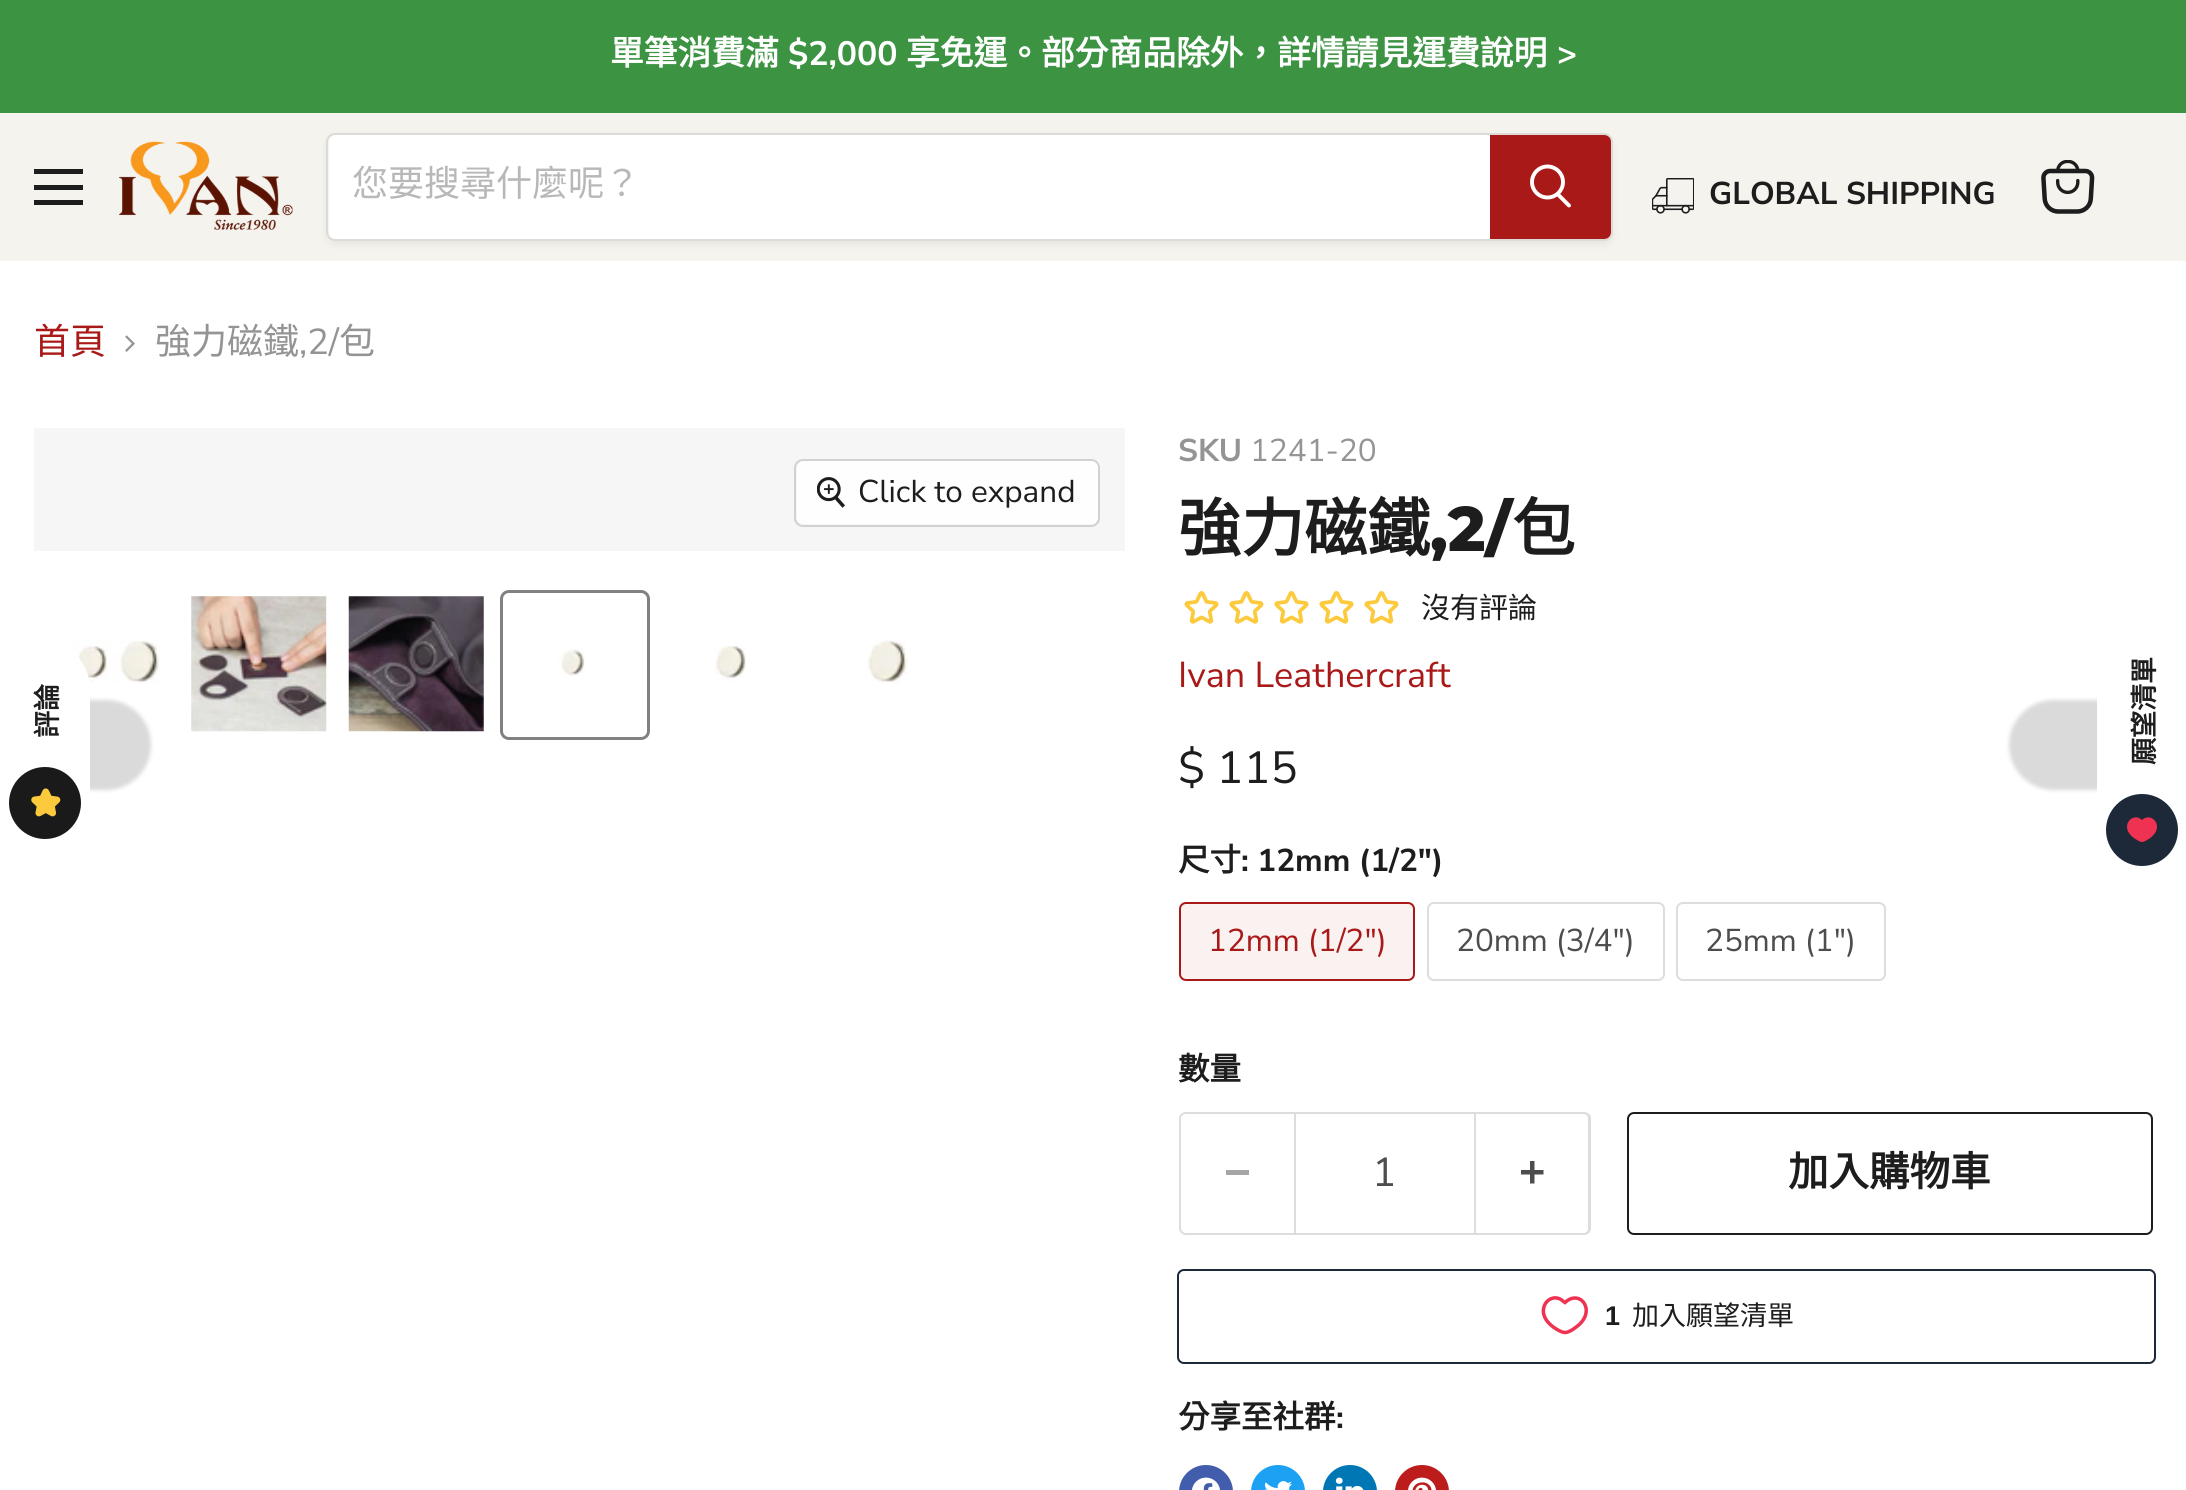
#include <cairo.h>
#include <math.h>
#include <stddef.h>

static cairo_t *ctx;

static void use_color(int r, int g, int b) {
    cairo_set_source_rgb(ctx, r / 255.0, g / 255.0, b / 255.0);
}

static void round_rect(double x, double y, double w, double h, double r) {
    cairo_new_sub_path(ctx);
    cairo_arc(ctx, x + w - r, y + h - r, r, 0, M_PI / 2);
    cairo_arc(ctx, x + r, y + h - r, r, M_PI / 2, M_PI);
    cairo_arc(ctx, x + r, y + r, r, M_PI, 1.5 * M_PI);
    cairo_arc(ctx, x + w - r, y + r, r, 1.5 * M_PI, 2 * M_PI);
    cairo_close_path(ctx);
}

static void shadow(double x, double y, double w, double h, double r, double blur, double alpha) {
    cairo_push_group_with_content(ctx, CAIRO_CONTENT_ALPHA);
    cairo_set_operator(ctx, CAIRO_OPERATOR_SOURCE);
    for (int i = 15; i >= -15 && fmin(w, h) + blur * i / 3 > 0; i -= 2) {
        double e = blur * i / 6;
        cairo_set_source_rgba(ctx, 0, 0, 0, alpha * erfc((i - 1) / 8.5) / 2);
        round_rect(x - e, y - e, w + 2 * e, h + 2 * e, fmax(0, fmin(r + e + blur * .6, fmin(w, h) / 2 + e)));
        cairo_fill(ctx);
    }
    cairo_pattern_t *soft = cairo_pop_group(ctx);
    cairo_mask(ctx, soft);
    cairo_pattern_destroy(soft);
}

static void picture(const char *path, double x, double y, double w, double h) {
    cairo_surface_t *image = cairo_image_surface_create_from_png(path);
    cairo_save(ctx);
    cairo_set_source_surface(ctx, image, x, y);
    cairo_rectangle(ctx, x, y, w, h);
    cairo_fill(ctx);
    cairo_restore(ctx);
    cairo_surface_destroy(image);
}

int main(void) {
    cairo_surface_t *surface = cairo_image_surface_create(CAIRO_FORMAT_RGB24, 2186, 1490);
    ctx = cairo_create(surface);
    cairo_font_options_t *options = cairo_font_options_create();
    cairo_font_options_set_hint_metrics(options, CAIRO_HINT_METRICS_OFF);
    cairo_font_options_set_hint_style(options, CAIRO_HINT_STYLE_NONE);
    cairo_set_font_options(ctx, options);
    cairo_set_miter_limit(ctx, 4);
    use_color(255, 255, 255);
    cairo_paint(ctx);
    use_color(60, 147, 66);
    cairo_rectangle(ctx, 0, 0, 2186, 113);
    cairo_fill(ctx);
    cairo_select_font_face(ctx, "Noto Sans CJK TC", CAIRO_FONT_SLANT_NORMAL, CAIRO_FONT_WEIGHT_BOLD);
    cairo_set_font_size(ctx, 33.75);
    use_color(255, 255, 255);
    cairo_move_to(ctx, 610, 65);
    cairo_show_text(ctx, "單筆消費滿");
    cairo_select_font_face(ctx, "Nunito Sans", CAIRO_FONT_SLANT_NORMAL, CAIRO_FONT_WEIGHT_BOLD);
    cairo_move_to(ctx, 788, 65);
    cairo_show_text(ctx, "$2,000");
    cairo_select_font_face(ctx, "Noto Sans CJK TC", CAIRO_FONT_SLANT_NORMAL, CAIRO_FONT_WEIGHT_BOLD);
    cairo_move_to(ctx, 906, 65);
    cairo_show_text(ctx, "享免運。部分商品除外，詳情請見運費說明");
    cairo_select_font_face(ctx, "Nunito Sans", CAIRO_FONT_SLANT_NORMAL, CAIRO_FONT_WEIGHT_BOLD);
    cairo_move_to(ctx, 1557, 65);
    cairo_show_text(ctx, ">");
    use_color(245, 243, 237);
    cairo_rectangle(ctx, 0, 113, 2186, 148);
    cairo_fill(ctx);
    use_color(29, 29, 29);
    cairo_rectangle(ctx, 34, 169, 49, 5);
    cairo_fill(ctx);
    cairo_rectangle(ctx, 34, 185, 49, 5);
    cairo_fill(ctx);
    cairo_rectangle(ctx, 34, 200, 49, 5);
    cairo_fill(ctx);
    picture("img1.png", 119, 141, 174, 89);
    cairo_save(ctx);
    cairo_set_fill_rule(ctx, CAIRO_FILL_RULE_EVEN_ODD);
    cairo_new_path(ctx);
    cairo_move_to(ctx, 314, 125);
    cairo_line_to(ctx, 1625, 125);
    cairo_line_to(ctx, 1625, 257);
    cairo_line_to(ctx, 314, 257);
    cairo_close_path(ctx);
    cairo_move_to(ctx, 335, 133);
    cairo_line_to(ctx, 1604, 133);
    cairo_curve_to(ctx, 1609, 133, 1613, 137, 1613, 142);
    cairo_line_to(ctx, 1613, 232);
    cairo_curve_to(ctx, 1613, 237, 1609, 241, 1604, 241);
    cairo_line_to(ctx, 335, 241);
    cairo_curve_to(ctx, 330, 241, 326, 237, 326, 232);
    cairo_line_to(ctx, 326, 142);
    cairo_curve_to(ctx, 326, 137, 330, 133, 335, 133);
    cairo_close_path(ctx);
    cairo_clip(ctx);
    use_color(128, 128, 128);
    shadow(326, 137, 1287, 108, 9, 3.5, 0.11);
    cairo_restore(ctx);
    round_rect(327, 134, 1285, 106, 8);
    cairo_set_source_rgba(ctx, 0.502, 0.502, 0.502, 0.2);
    cairo_stroke(ctx);
    use_color(255, 255, 255);
    cairo_new_path(ctx);
    cairo_move_to(ctx, 336, 135);
    cairo_line_to(ctx, 1490, 135);
    cairo_line_to(ctx, 1490, 239);
    cairo_line_to(ctx, 336, 239);
    cairo_curve_to(ctx, 332, 239, 329, 236, 329, 232);
    cairo_line_to(ctx, 329, 142);
    cairo_curve_to(ctx, 329, 138, 332, 135, 336, 135);
    cairo_close_path(ctx);
    cairo_fill(ctx);
    cairo_select_font_face(ctx, "Noto Sans CJK TC", CAIRO_FONT_SLANT_NORMAL, CAIRO_FONT_WEIGHT_NORMAL);
    cairo_set_font_size(ctx, 36);
    use_color(184, 184, 184);
    cairo_move_to(ctx, 352, 196);
    cairo_show_text(ctx, "您要搜尋什麼呢？");
    use_color(169, 25, 24);
    cairo_new_path(ctx);
    cairo_move_to(ctx, 1491, 136);
    cairo_line_to(ctx, 1604, 136);
    cairo_curve_to(ctx, 1607.5, 136, 1610, 138.5, 1610, 142);
    cairo_line_to(ctx, 1610, 232);
    cairo_curve_to(ctx, 1610, 235.5, 1607.5, 238, 1604, 238);
    cairo_line_to(ctx, 1491, 238);
    cairo_close_path(ctx);
    cairo_fill_preserve(ctx);
    cairo_stroke(ctx);
    cairo_new_path(ctx);
    cairo_move_to(ctx, 1569, 205.5);
    cairo_line_to(ctx, 1558, 194.5);
    use_color(255, 255, 255);
    cairo_set_line_width(ctx, 3.9);
    cairo_set_line_cap(ctx, CAIRO_LINE_CAP_ROUND);
    cairo_stroke(ctx);
    cairo_arc(ctx, 1547.5, 182, 15.5, 0, 2 * M_PI);
    cairo_set_line_cap(ctx, CAIRO_LINE_CAP_BUTT);
    cairo_stroke(ctx);
    picture("img2.png", 1652, 178, 42, 36);
    cairo_select_font_face(ctx, "Nunito Sans", CAIRO_FONT_SLANT_NORMAL, CAIRO_FONT_WEIGHT_BOLD);
    cairo_set_font_size(ctx, 31.5);
    use_color(29, 29, 29);
    cairo_move_to(ctx, 1709, 204);
    cairo_show_text(ctx, "GLOBAL SHIPPING");
    picture("img3.png", 2041, 160, 54, 54);
    cairo_select_font_face(ctx, "Noto Sans CJK TC", CAIRO_FONT_SLANT_NORMAL, CAIRO_FONT_WEIGHT_NORMAL);
    cairo_set_font_size(ctx, 36);
    use_color(169, 25, 24);
    cairo_move_to(ctx, 34, 354);
    cairo_show_text(ctx, "首頁");
    picture("img4.png", 125, 335, 10, 17);
    use_color(148, 148, 148);
    cairo_move_to(ctx, 155, 354);
    cairo_show_text(ctx, "強力磁鐵");
    cairo_select_font_face(ctx, "Nunito Sans", CAIRO_FONT_SLANT_NORMAL, CAIRO_FONT_WEIGHT_NORMAL);
    cairo_move_to(ctx, 299, 354);
    cairo_show_text(ctx, ",2/");
    cairo_select_font_face(ctx, "Noto Sans CJK TC", CAIRO_FONT_SLANT_NORMAL, CAIRO_FONT_WEIGHT_NORMAL);
    cairo_move_to(ctx, 339, 354);
    cairo_show_text(ctx, "包");
    use_color(246, 246, 246);
    cairo_rectangle(ctx, 34, 428, 1091, 123);
    cairo_fill(ctx);
    round_rect(795, 460, 304, 66, 8);
    use_color(209, 209, 209);
    cairo_set_line_width(ctx, 2);
    cairo_stroke(ctx);
    cairo_set_source_rgba(ctx, 1, 1, 1, 0.9);
    round_rect(797, 461, 301, 63, 7);
    cairo_fill(ctx);
    picture("img5.png", 817, 477, 28, 31);
    cairo_select_font_face(ctx, "Nunito Sans", CAIRO_FONT_SLANT_NORMAL, CAIRO_FONT_WEIGHT_NORMAL);
    cairo_set_font_size(ctx, 31.5);
    use_color(29, 29, 29);
    cairo_move_to(ctx, 858, 502);
    cairo_show_text(ctx, "Click to expand");
    picture("img6.png", 50, 640, 110, 43);
    picture("img7.png", 191, 596, 136, 136);
    picture("img8.png", 348, 596, 136, 136);
    round_rect(501.5, 591.5, 147, 147, 7.5);
    use_color(129, 129, 129);
    cairo_set_line_width(ctx, 3);
    cairo_stroke(ctx);
    picture("img9.png", 557, 647, 28, 29);
    picture("img10.png", 715, 645, 31, 36);
    picture("img11.png", 867, 640, 41, 43);
    cairo_select_font_face(ctx, "Nunito Sans", CAIRO_FONT_SLANT_NORMAL, CAIRO_FONT_WEIGHT_BOLD);
    use_color(148, 148, 148);
    cairo_move_to(ctx, 1178, 461);
    cairo_show_text(ctx, "SKU");
    cairo_select_font_face(ctx, "Nunito Sans", CAIRO_FONT_SLANT_NORMAL, CAIRO_FONT_WEIGHT_NORMAL);
    cairo_move_to(ctx, 1250, 461);
    cairo_show_text(ctx, "1241-20");
    cairo_select_font_face(ctx, "Noto Sans CJK TC", CAIRO_FONT_SLANT_NORMAL, CAIRO_FONT_WEIGHT_BOLD);
    cairo_set_font_size(ctx, 63);
    use_color(29, 29, 29);
    cairo_move_to(ctx, 1178, 551);
    cairo_show_text(ctx, "強力磁鐵");
    cairo_select_font_face(ctx, "Montserrat ExtraBold", CAIRO_FONT_SLANT_NORMAL, CAIRO_FONT_WEIGHT_NORMAL);
    cairo_move_to(ctx, 1430, 551);
    cairo_show_text(ctx, ",2/");
    cairo_select_font_face(ctx, "Noto Sans CJK TC", CAIRO_FONT_SLANT_NORMAL, CAIRO_FONT_WEIGHT_BOLD);
    cairo_move_to(ctx, 1512, 551);
    cairo_show_text(ctx, "包");
    picture("img12.png", 1184, 591, 35, 33);
    picture("img12.png", 1229, 591, 35, 33);
    picture("img12.png", 1274, 591, 35, 33);
    picture("img12.png", 1319, 591, 35, 33);
    picture("img12.png", 1364, 591, 35, 33);
    cairo_select_font_face(ctx, "Noto Sans CJK TC", CAIRO_FONT_SLANT_NORMAL, CAIRO_FONT_WEIGHT_NORMAL);
    cairo_set_font_size(ctx, 29);
    cairo_move_to(ctx, 1421, 618);
    cairo_show_text(ctx, "沒有評論");
    cairo_select_font_face(ctx, "Nunito Sans", CAIRO_FONT_SLANT_NORMAL, CAIRO_FONT_WEIGHT_NORMAL);
    cairo_set_font_size(ctx, 36);
    use_color(169, 25, 24);
    cairo_move_to(ctx, 1178, 687);
    cairo_show_text(ctx, "Ivan Leathercraft");
    cairo_set_font_size(ctx, 45);
    use_color(29, 29, 29);
    cairo_move_to(ctx, 1178, 783);
    cairo_show_text(ctx, "$ 115");
    cairo_select_font_face(ctx, "Noto Sans CJK TC", CAIRO_FONT_SLANT_NORMAL, CAIRO_FONT_WEIGHT_BOLD);
    cairo_set_font_size(ctx, 31.5);
    cairo_move_to(ctx, 1178, 871);
    cairo_show_text(ctx, "尺寸");
    cairo_select_font_face(ctx, "Nunito Sans", CAIRO_FONT_SLANT_NORMAL, CAIRO_FONT_WEIGHT_BOLD);
    cairo_move_to(ctx, 1241, 871);
    cairo_show_text(ctx, ": 12mm (1/2\")");
    use_color(250, 241, 241);
    round_rect(1180, 903, 234, 77, 6);
    cairo_fill_preserve(ctx);
    use_color(169, 25, 24);
    cairo_set_line_width(ctx, 2);
    cairo_stroke(ctx);
    cairo_select_font_face(ctx, "Nunito Sans", CAIRO_FONT_SLANT_NORMAL, CAIRO_FONT_WEIGHT_NORMAL);
    cairo_move_to(ctx, 1208, 951);
    cairo_show_text(ctx, "12mm (1/2\")");
    round_rect(1428, 903, 236, 77, 6);
    use_color(221, 221, 221);
    cairo_stroke(ctx);
    use_color(77, 77, 77);
    cairo_move_to(ctx, 1456, 951);
    cairo_show_text(ctx, "20mm (3/4\")");
    round_rect(1677, 903, 208, 77, 6);
    use_color(221, 221, 221);
    cairo_stroke(ctx);
    use_color(77, 77, 77);
    cairo_move_to(ctx, 1705, 951);
    cairo_show_text(ctx, "25mm (1\")");
    cairo_select_font_face(ctx, "Noto Sans CJK TC", CAIRO_FONT_SLANT_NORMAL, CAIRO_FONT_WEIGHT_BOLD);
    use_color(29, 29, 29);
    cairo_move_to(ctx, 1178, 1080);
    cairo_show_text(ctx, "數量");
    use_color(221, 221, 221);
    cairo_set_fill_rule(ctx, CAIRO_FILL_RULE_EVEN_ODD);
    cairo_new_path(ctx);
    cairo_move_to(ctx, 1186, 1112);
    cairo_line_to(ctx, 1294, 1112);
    cairo_line_to(ctx, 1294, 1235);
    cairo_line_to(ctx, 1186, 1235);
    cairo_curve_to(ctx, 1182, 1235, 1179, 1232, 1179, 1228);
    cairo_line_to(ctx, 1179, 1118);
    cairo_curve_to(ctx, 1179, 1115, 1182, 1112, 1186, 1112);
    cairo_close_path(ctx);
    cairo_move_to(ctx, 1186, 1114);
    cairo_line_to(ctx, 1294, 1114);
    cairo_line_to(ctx, 1294, 1233);
    cairo_line_to(ctx, 1186, 1233);
    cairo_curve_to(ctx, 1183, 1233, 1181, 1231, 1181, 1228);
    cairo_line_to(ctx, 1181, 1118);
    cairo_curve_to(ctx, 1181, 1116, 1183, 1114, 1186, 1114);
    cairo_close_path(ctx);
    cairo_fill(ctx);
    use_color(166, 166, 166);
    cairo_rectangle(ctx, 1226, 1170, 23, 5);
    cairo_fill(ctx);
    cairo_rectangle(ctx, 1295, 1113, 180, 121);
    use_color(221, 221, 221);
    cairo_stroke(ctx);
    cairo_select_font_face(ctx, "Nunito Sans", CAIRO_FONT_SLANT_NORMAL, CAIRO_FONT_WEIGHT_NORMAL);
    cairo_set_font_size(ctx, 40.5);
    use_color(77, 77, 77);
    cairo_move_to(ctx, 1372, 1186);
    cairo_show_text(ctx, "1");
    use_color(221, 221, 221);
    cairo_new_path(ctx);
    cairo_move_to(ctx, 1476, 1112);
    cairo_line_to(ctx, 1584, 1112);
    cairo_curve_to(ctx, 1588, 1112, 1591, 1115, 1591, 1118);
    cairo_line_to(ctx, 1591, 1228);
    cairo_curve_to(ctx, 1591, 1232, 1588, 1235, 1584, 1235);
    cairo_line_to(ctx, 1476, 1235);
    cairo_close_path(ctx);
    cairo_move_to(ctx, 1476, 1114);
    cairo_line_to(ctx, 1584, 1114);
    cairo_curve_to(ctx, 1586, 1114, 1588, 1116, 1588, 1118);
    cairo_line_to(ctx, 1588, 1228);
    cairo_curve_to(ctx, 1588, 1231, 1586, 1233, 1584, 1233);
    cairo_line_to(ctx, 1476, 1233);
    cairo_close_path(ctx);
    cairo_fill(ctx);
    picture("img13.png", 1521, 1161, 23, 23);
    round_rect(1628, 1113, 524, 121, 6);
    use_color(29, 29, 29);
    cairo_stroke(ctx);
    cairo_select_font_face(ctx, "Noto Sans CJK TC", CAIRO_FONT_SLANT_NORMAL, CAIRO_FONT_WEIGHT_BOLD);
    cairo_move_to(ctx, 1788, 1186);
    cairo_show_text(ctx, "加入購物車");
    round_rect(1178, 1270, 977, 93, 6);
    use_color(29, 41, 57);
    cairo_stroke(ctx);
    cairo_new_path(ctx);
    cairo_move_to(ctx, 1563.5, 1301.5);
    cairo_line_to(ctx, 1565, 1302.5);
    cairo_curve_to(ctx, 1580.5, 1288, 1598, 1312, 1575.5, 1327.5);
    cairo_curve_to(ctx, 1573, 1329.5, 1568.5, 1332.5, 1565, 1332.5);
    cairo_curve_to(ctx, 1561.5, 1332.5, 1557, 1329.5, 1554, 1327.5);
    cairo_curve_to(ctx, 1531, 1311.5, 1550.5, 1289, 1563.5, 1301.5);
    cairo_close_path(ctx);
    use_color(239, 50, 81);
    cairo_set_line_width(ctx, 3.5);
    cairo_stroke(ctx);
    cairo_select_font_face(ctx, "Liberation Sans", CAIRO_FONT_SLANT_NORMAL, CAIRO_FONT_WEIGHT_BOLD);
    cairo_set_font_size(ctx, 27);
    use_color(29, 29, 29);
    cairo_move_to(ctx, 1605, 1325);
    cairo_show_text(ctx, "1");
    cairo_select_font_face(ctx, "Noto Sans CJK TC", CAIRO_FONT_SLANT_NORMAL, CAIRO_FONT_WEIGHT_NORMAL);
    cairo_move_to(ctx, 1632, 1325);
    cairo_show_text(ctx, "加入願望清單");
    cairo_select_font_face(ctx, "Noto Sans CJK TC", CAIRO_FONT_SLANT_NORMAL, CAIRO_FONT_WEIGHT_BOLD);
    cairo_set_font_size(ctx, 31.5);
    cairo_move_to(ctx, 1178, 1428);
    cairo_show_text(ctx, "分享至社群");
    cairo_select_font_face(ctx, "Nunito Sans", CAIRO_FONT_SLANT_NORMAL, CAIRO_FONT_WEIGHT_BOLD);
    cairo_move_to(ctx, 1336, 1428);
    cairo_show_text(ctx, ":");
    use_color(66, 93, 171);
    round_rect(1179, 1465, 54, 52, 27);
    cairo_fill(ctx);
    picture("img14.png", 1192, 1477, 28, 13);
    use_color(29, 161, 242);
    round_rect(1251, 1465, 54, 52, 27);
    cairo_fill(ctx);
    picture("img15.png", 1265, 1481, 27, 9);
    use_color(0, 119, 181);
    round_rect(1323, 1465, 54, 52, 27);
    cairo_fill(ctx);
    picture("img16.png", 1335, 1477, 29, 13);
    use_color(189, 28, 28);
    round_rect(1395, 1465, 54, 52, 27);
    cairo_fill(ctx);
    picture("img17.png", 1408, 1477, 28, 13);
    use_color(218, 218, 218);
    shadow(-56, 700, 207, 90, 50, 2, 1);
    use_color(255, 255, 255);
    cairo_set_fill_rule(ctx, CAIRO_FILL_RULE_WINDING);
    cairo_new_path(ctx);
    cairo_move_to(ctx, 0, 852);
    cairo_line_to(ctx, 0, 639);
    cairo_line_to(ctx, 40, 639);
    cairo_curve_to(ctx, 68, 639, 90, 662, 90, 689);
    cairo_line_to(ctx, 90, 803);
    cairo_curve_to(ctx, 90, 830, 68, 852, 40, 852);
    cairo_close_path(ctx);
    cairo_fill(ctx);
    cairo_select_font_face(ctx, "Noto Sans CJK TC", CAIRO_FONT_SLANT_NORMAL, CAIRO_FONT_WEIGHT_BOLD);
    cairo_set_font_size(ctx, 27);
    use_color(29, 29, 29);
    cairo_save(ctx);
    cairo_translate(ctx, 57, 738);
    cairo_rotate(ctx, -90 * M_PI / 180);
    cairo_move_to(ctx, 0, 0);
    cairo_show_text(ctx, "評論");
    cairo_restore(ctx);
    use_color(26, 26, 26);
    cairo_new_path(ctx);
    cairo_arc(ctx, 45, 803, 36, 0, 2 * M_PI);
    cairo_fill(ctx);
    picture("img18.png", 31, 788, 30, 29);
    cairo_save(ctx);
    cairo_rectangle(ctx, 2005, 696, 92, 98);
    cairo_clip(ctx);
    use_color(218, 218, 218);
    shadow(2009, 700, 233, 90, 50, 2, 1);
    cairo_restore(ctx);
    use_color(29, 29, 29);
    cairo_save(ctx);
    cairo_translate(ctx, 2154, 765);
    cairo_rotate(ctx, -90 * M_PI / 180);
    cairo_move_to(ctx, 0, 0);
    cairo_show_text(ctx, "願望清單");
    cairo_restore(ctx);
    use_color(29, 41, 57);
    cairo_new_path(ctx);
    cairo_arc(ctx, 2142, 830, 36, 0, 2 * M_PI);
    cairo_fill(ctx);
    use_color(239, 50, 81);
    cairo_new_path(ctx);
    cairo_move_to(ctx, 2142, 820);
    cairo_curve_to(ctx, 2132.5, 811, 2118, 827, 2134.5, 838.5);
    cairo_curve_to(ctx, 2136.5, 839.5, 2139.5, 842, 2142, 842);
    cairo_curve_to(ctx, 2144.5, 842, 2147.5, 839.5, 2149.5, 838.5);
    cairo_curve_to(ctx, 2166, 827, 2151.5, 811, 2142, 820);
    cairo_close_path(ctx);
    cairo_fill(ctx);
    cairo_surface_write_to_png(surface, "result.png");
    cairo_font_options_destroy(options);
    cairo_destroy(ctx);
    cairo_surface_destroy(surface);
    return 0;
}
